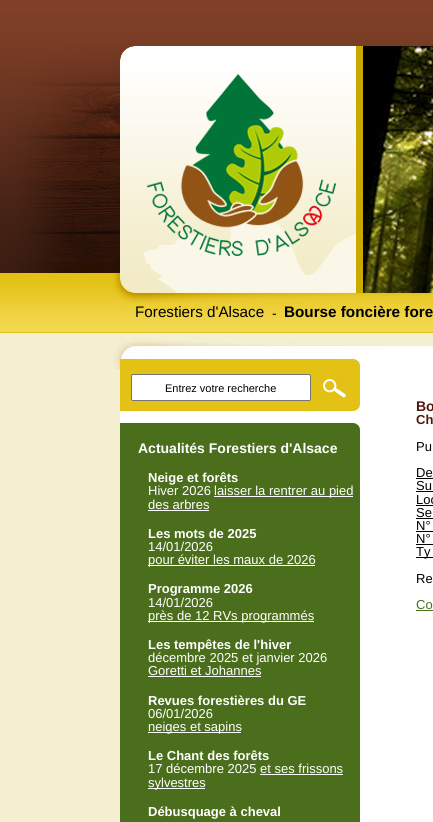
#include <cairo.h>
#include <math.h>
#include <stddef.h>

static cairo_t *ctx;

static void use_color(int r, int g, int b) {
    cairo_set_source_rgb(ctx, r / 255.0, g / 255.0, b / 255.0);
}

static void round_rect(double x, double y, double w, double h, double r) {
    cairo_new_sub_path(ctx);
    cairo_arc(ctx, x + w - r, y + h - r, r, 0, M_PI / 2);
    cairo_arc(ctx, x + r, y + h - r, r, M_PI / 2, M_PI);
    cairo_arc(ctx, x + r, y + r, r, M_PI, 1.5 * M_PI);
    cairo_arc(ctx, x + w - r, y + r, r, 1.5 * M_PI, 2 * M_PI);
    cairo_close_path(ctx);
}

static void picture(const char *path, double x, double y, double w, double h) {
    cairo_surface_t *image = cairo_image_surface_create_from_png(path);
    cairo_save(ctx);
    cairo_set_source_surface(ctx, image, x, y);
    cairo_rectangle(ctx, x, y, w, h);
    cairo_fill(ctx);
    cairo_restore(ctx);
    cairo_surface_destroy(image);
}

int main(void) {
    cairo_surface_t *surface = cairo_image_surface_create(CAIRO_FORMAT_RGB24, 433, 822);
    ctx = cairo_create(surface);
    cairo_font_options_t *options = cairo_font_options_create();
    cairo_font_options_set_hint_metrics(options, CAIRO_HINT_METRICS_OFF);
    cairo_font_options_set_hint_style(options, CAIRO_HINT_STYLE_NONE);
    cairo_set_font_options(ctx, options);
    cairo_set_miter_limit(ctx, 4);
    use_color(245, 238, 209);
    cairo_paint(ctx);
    picture("img1.png", 0, 0, 433, 46);
    picture("img2.png", 0, 46, 433, 287);
    cairo_select_font_face(ctx, "Liberation Sans", CAIRO_FONT_SLANT_NORMAL, CAIRO_FONT_WEIGHT_NORMAL);
    cairo_set_font_size(ctx, 15.25);
    use_color(0, 0, 0);
    cairo_move_to(ctx, 135, 317);
    cairo_show_text(ctx, "Forestiers d'Alsace");
    cairo_set_font_size(ctx, 14);
    cairo_move_to(ctx, 272, 318);
    cairo_show_text(ctx, "-");
    cairo_select_font_face(ctx, "Liberation Sans", CAIRO_FONT_SLANT_NORMAL, CAIRO_FONT_WEIGHT_BOLD);
    cairo_set_font_size(ctx, 15.25);
    cairo_move_to(ctx, 284, 317);
    cairo_show_text(ctx, "Bourse foncière fore");
    use_color(255, 255, 255);
    cairo_rectangle(ctx, 120, 369, 313, 453);
    cairo_fill(ctx);
    picture("img3.png", 113, 333, 320, 36);
    picture("img4.png", 120, 359, 240, 52);
    round_rect(131.5, 374.5, 179, 26, 1.5);
    cairo_fill_preserve(ctx);
    use_color(118, 118, 118);
    cairo_set_line_width(ctx, 1);
    cairo_stroke(ctx);
    cairo_select_font_face(ctx, "Liberation Sans", CAIRO_FONT_SLANT_NORMAL, CAIRO_FONT_WEIGHT_NORMAL);
    cairo_set_font_size(ctx, 11);
    use_color(0, 0, 0);
    cairo_move_to(ctx, 165, 392);
    cairo_show_text(ctx, "Entrez votre recherche");
    picture("img5.png", 323, 379, 23, 19);
    cairo_rectangle(ctx, 320.5, 375.5, 28, 24);
    use_color(227, 194, 21);
    cairo_stroke(ctx);
    picture("img6.png", 120, 423, 240, 7);
    use_color(75, 110, 28);
    cairo_rectangle(ctx, 120, 430, 240, 392);
    cairo_fill(ctx);
    cairo_select_font_face(ctx, "Liberation Sans", CAIRO_FONT_SLANT_NORMAL, CAIRO_FONT_WEIGHT_BOLD);
    cairo_set_font_size(ctx, 14);
    use_color(255, 255, 255);
    cairo_move_to(ctx, 138, 453);
    cairo_show_text(ctx, "Actualités Forestiers d'Alsace");
    cairo_set_font_size(ctx, 13);
    cairo_move_to(ctx, 148, 482);
    cairo_show_text(ctx, "Neige et forêts");
    cairo_select_font_face(ctx, "Liberation Sans", CAIRO_FONT_SLANT_NORMAL, CAIRO_FONT_WEIGHT_NORMAL);
    cairo_move_to(ctx, 148, 495);
    cairo_show_text(ctx, "Hiver 2026");
    cairo_rectangle(ctx, 214, 496, 139, 1);
    cairo_fill(ctx);
    cairo_move_to(ctx, 214, 495);
    cairo_show_text(ctx, "laisser la rentrer au pied");
    cairo_move_to(ctx, 148, 509);
    cairo_show_text(ctx, "des arbres");
    cairo_rectangle(ctx, 148, 510, 61, 1);
    cairo_fill(ctx);
    cairo_select_font_face(ctx, "Liberation Sans", CAIRO_FONT_SLANT_NORMAL, CAIRO_FONT_WEIGHT_BOLD);
    cairo_move_to(ctx, 148, 538);
    cairo_show_text(ctx, "Les mots de 2025");
    cairo_select_font_face(ctx, "Liberation Sans", CAIRO_FONT_SLANT_NORMAL, CAIRO_FONT_WEIGHT_NORMAL);
    cairo_move_to(ctx, 148, 551);
    cairo_show_text(ctx, "14/01/2026");
    cairo_rectangle(ctx, 148, 565, 167, 1);
    cairo_fill(ctx);
    cairo_move_to(ctx, 148, 564);
    cairo_show_text(ctx, "pour éviter les maux de 2026");
    cairo_select_font_face(ctx, "Liberation Sans", CAIRO_FONT_SLANT_NORMAL, CAIRO_FONT_WEIGHT_BOLD);
    cairo_move_to(ctx, 148, 593);
    cairo_show_text(ctx, "Programme 2026");
    cairo_select_font_face(ctx, "Liberation Sans", CAIRO_FONT_SLANT_NORMAL, CAIRO_FONT_WEIGHT_NORMAL);
    cairo_move_to(ctx, 148, 607);
    cairo_show_text(ctx, "14/01/2026");
    cairo_rectangle(ctx, 148, 621, 166, 1);
    cairo_fill(ctx);
    cairo_move_to(ctx, 148, 620);
    cairo_show_text(ctx, "près de 12 RVs programmés");
    cairo_select_font_face(ctx, "Liberation Sans", CAIRO_FONT_SLANT_NORMAL, CAIRO_FONT_WEIGHT_BOLD);
    cairo_move_to(ctx, 148, 649);
    cairo_show_text(ctx, "Les tempêtes de l'hiver");
    cairo_select_font_face(ctx, "Liberation Sans", CAIRO_FONT_SLANT_NORMAL, CAIRO_FONT_WEIGHT_NORMAL);
    cairo_move_to(ctx, 148, 662);
    cairo_show_text(ctx, "décembre 2025 et janvier 2026");
    cairo_move_to(ctx, 148, 675);
    cairo_show_text(ctx, "Goretti et Johannes");
    cairo_rectangle(ctx, 148, 676, 113, 1);
    cairo_fill(ctx);
    cairo_select_font_face(ctx, "Liberation Sans", CAIRO_FONT_SLANT_NORMAL, CAIRO_FONT_WEIGHT_BOLD);
    cairo_move_to(ctx, 148, 705);
    cairo_show_text(ctx, "Revues forestières du GE");
    cairo_select_font_face(ctx, "Liberation Sans", CAIRO_FONT_SLANT_NORMAL, CAIRO_FONT_WEIGHT_NORMAL);
    cairo_move_to(ctx, 148, 718);
    cairo_show_text(ctx, "06/01/2026");
    cairo_rectangle(ctx, 148, 732, 93, 1);
    cairo_fill(ctx);
    cairo_move_to(ctx, 148, 731);
    cairo_show_text(ctx, "neiges et sapins");
    cairo_select_font_face(ctx, "Liberation Sans", CAIRO_FONT_SLANT_NORMAL, CAIRO_FONT_WEIGHT_BOLD);
    cairo_move_to(ctx, 148, 760);
    cairo_show_text(ctx, "Le Chant des forêts");
    cairo_select_font_face(ctx, "Liberation Sans", CAIRO_FONT_SLANT_NORMAL, CAIRO_FONT_WEIGHT_NORMAL);
    cairo_move_to(ctx, 148, 773);
    cairo_show_text(ctx, "17 décembre 2025 et ses frissons");
    cairo_rectangle(ctx, 148, 788, 57, 1);
    cairo_fill(ctx);
    cairo_move_to(ctx, 148, 787);
    cairo_show_text(ctx, "sylvestres");
    cairo_rectangle(ctx, 260, 774, 83, 1);
    cairo_fill(ctx);
    cairo_select_font_face(ctx, "Liberation Sans", CAIRO_FONT_SLANT_NORMAL, CAIRO_FONT_WEIGHT_BOLD);
    cairo_move_to(ctx, 148, 816);
    cairo_show_text(ctx, "Débusquage à cheval");
    cairo_set_font_size(ctx, 14);
    use_color(83, 25, 11);
    cairo_move_to(ctx, 416, 411);
    cairo_show_text(ctx, "Bo");
    cairo_set_font_size(ctx, 13);
    cairo_move_to(ctx, 416, 424);
    cairo_show_text(ctx, "Ch");
    cairo_select_font_face(ctx, "Liberation Sans", CAIRO_FONT_SLANT_NORMAL, CAIRO_FONT_WEIGHT_NORMAL);
    use_color(0, 0, 0);
    cairo_move_to(ctx, 416, 451);
    cairo_show_text(ctx, "Pu");
    cairo_move_to(ctx, 416, 477);
    cairo_show_text(ctx, "De");
    cairo_rectangle(ctx, 416, 478, 17, 1);
    cairo_fill(ctx);
    cairo_move_to(ctx, 416, 490);
    cairo_show_text(ctx, "Su");
    cairo_rectangle(ctx, 416, 491, 17, 1);
    cairo_fill(ctx);
    cairo_move_to(ctx, 416, 504);
    cairo_show_text(ctx, "Loc");
    cairo_rectangle(ctx, 416, 505, 17, 1);
    cairo_fill(ctx);
    cairo_move_to(ctx, 416, 517);
    cairo_show_text(ctx, "Se");
    cairo_rectangle(ctx, 416, 518, 17, 1);
    cairo_fill(ctx);
    cairo_move_to(ctx, 416, 530);
    cairo_show_text(ctx, "N°");
    cairo_rectangle(ctx, 416, 531, 17, 1);
    cairo_fill(ctx);
    cairo_move_to(ctx, 416, 543);
    cairo_show_text(ctx, "N°");
    cairo_rectangle(ctx, 416, 544, 17, 1);
    cairo_fill(ctx);
    cairo_rectangle(ctx, 416, 557, 17, 1);
    cairo_fill(ctx);
    cairo_move_to(ctx, 416, 556);
    cairo_show_text(ctx, "Ty");
    cairo_move_to(ctx, 416, 583);
    cairo_show_text(ctx, "Re");
    use_color(74, 110, 28);
    cairo_move_to(ctx, 416, 609);
    cairo_show_text(ctx, "Co");
    cairo_rectangle(ctx, 416, 610, 17, 1);
    cairo_fill(ctx);
    cairo_surface_write_to_png(surface, "result.png");
    cairo_font_options_destroy(options);
    cairo_destroy(ctx);
    cairo_surface_destroy(surface);
    return 0;
}
